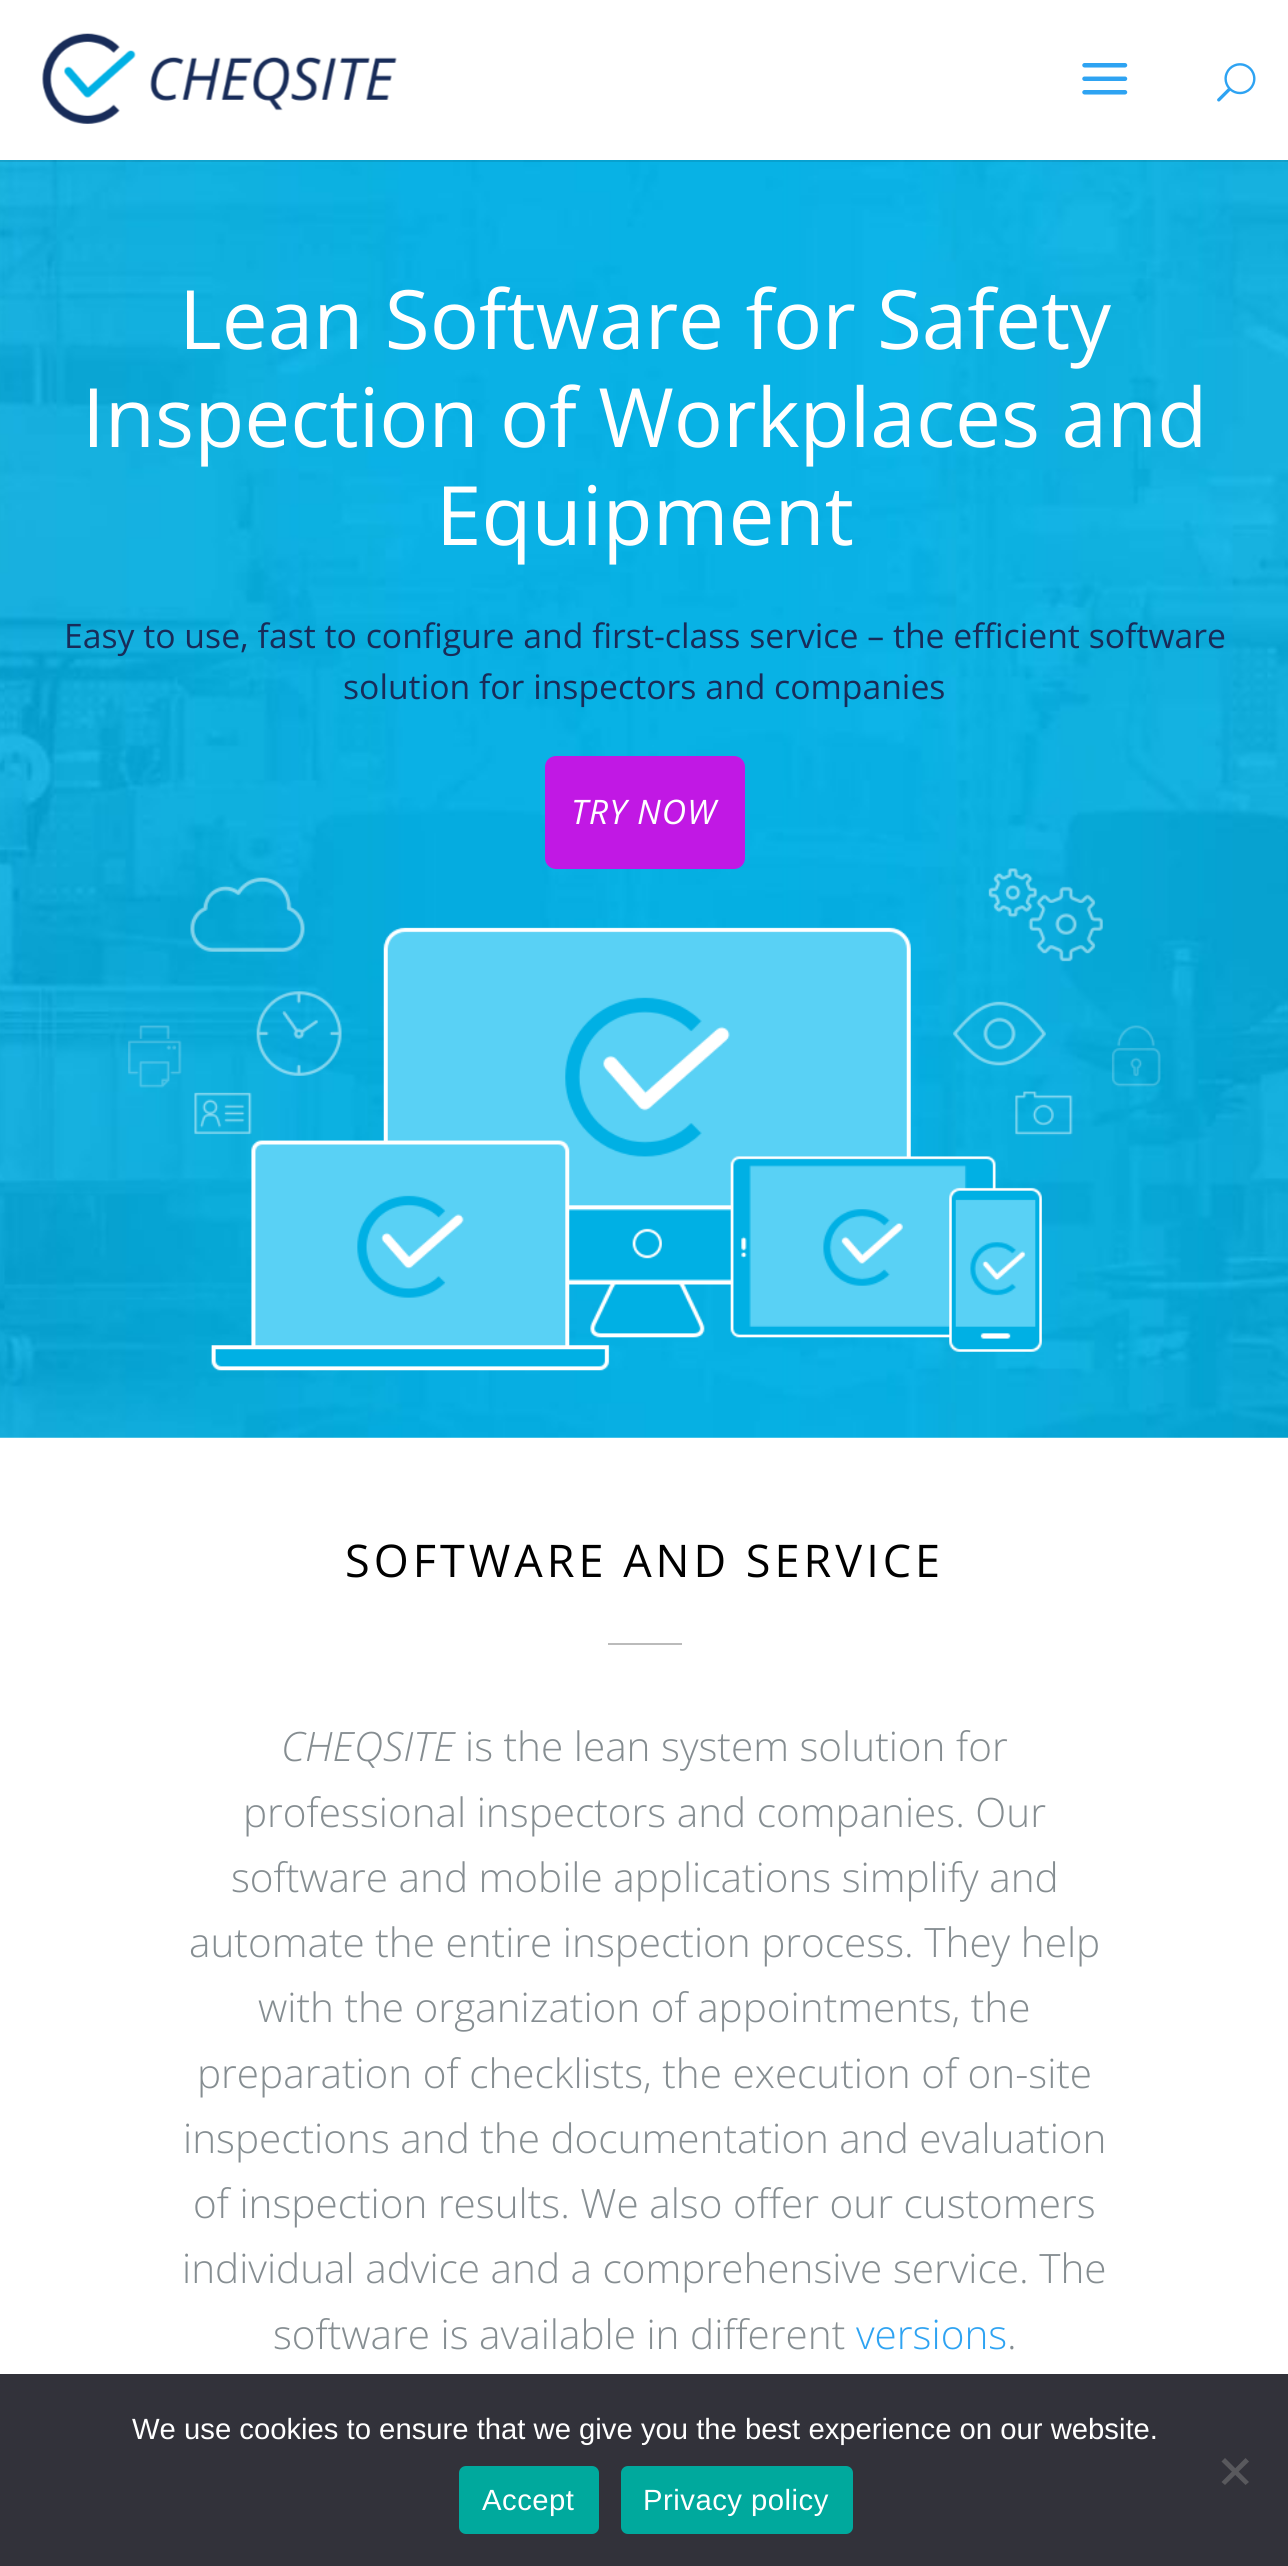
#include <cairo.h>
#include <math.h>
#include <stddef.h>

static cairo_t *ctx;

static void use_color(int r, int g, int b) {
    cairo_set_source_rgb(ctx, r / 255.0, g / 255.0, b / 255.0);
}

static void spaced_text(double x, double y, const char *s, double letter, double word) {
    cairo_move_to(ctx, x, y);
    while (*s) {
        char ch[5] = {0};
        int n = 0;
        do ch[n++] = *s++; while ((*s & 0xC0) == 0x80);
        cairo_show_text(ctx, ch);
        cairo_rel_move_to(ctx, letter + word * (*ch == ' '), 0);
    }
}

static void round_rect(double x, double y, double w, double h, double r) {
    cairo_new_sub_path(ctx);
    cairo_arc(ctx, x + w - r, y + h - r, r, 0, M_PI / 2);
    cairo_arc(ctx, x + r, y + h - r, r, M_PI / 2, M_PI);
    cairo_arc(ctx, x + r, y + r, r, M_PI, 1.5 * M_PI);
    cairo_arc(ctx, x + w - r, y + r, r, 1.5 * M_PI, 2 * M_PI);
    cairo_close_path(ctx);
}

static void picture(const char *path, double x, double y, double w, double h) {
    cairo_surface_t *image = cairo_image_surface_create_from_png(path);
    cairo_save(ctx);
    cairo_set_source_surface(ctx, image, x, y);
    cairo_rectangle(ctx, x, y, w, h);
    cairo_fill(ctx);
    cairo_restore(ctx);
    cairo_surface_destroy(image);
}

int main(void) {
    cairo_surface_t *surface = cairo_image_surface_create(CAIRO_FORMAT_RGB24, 1288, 2566);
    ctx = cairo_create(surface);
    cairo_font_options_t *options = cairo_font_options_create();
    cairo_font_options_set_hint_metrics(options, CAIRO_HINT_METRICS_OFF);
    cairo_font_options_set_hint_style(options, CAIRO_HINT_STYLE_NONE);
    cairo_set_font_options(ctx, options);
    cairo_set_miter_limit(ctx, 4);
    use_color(255, 255, 255);
    cairo_paint(ctx);
    picture("img4.png", 0, 160, 1288, 1278);
    cairo_set_source_rgba(ctx, 0, 0, 0, 0.1);
    cairo_rectangle(ctx, 0, 160, 1288, 2);
    cairo_fill(ctx);
    picture("img1.png", 42, 33, 355, 91);
    picture("img2.png", 1082, 63, 46, 32);
    picture("img3.png", 1217, 63, 39, 39);
    cairo_select_font_face(ctx, "Open Sans", CAIRO_FONT_SLANT_NORMAL, CAIRO_FONT_WEIGHT_NORMAL);
    cairo_set_font_size(ctx, 81.9);
    use_color(255, 255, 255);
    cairo_move_to(ctx, 179, 349);
    cairo_show_text(ctx, "Lean Software for Safety");
    cairo_move_to(ctx, 82, 447);
    cairo_show_text(ctx, "Inspection of Workplaces and");
    cairo_move_to(ctx, 436, 545);
    cairo_show_text(ctx, "Equipment");
    cairo_set_font_size(ctx, 33.75);
    use_color(24, 44, 89);
    cairo_move_to(ctx, 64, 648);
    cairo_show_text(ctx, "Easy to use, fast to configure and first-class service – the efficient software");
    cairo_move_to(ctx, 343, 699);
    cairo_show_text(ctx, "solution for inspectors and companies");
    use_color(193, 24, 228);
    round_rect(547.5, 758.5, 195, 108, 8.5);
    cairo_fill_preserve(ctx);
    cairo_set_line_width(ctx, 5);
    cairo_stroke(ctx);
    cairo_select_font_face(ctx, "Open Sans", CAIRO_FONT_SLANT_ITALIC, CAIRO_FONT_WEIGHT_NORMAL);
    use_color(255, 255, 255);
    spaced_text(571, 824, "TRY NOW", 1, 0);
    picture("img5.png", 128, 868, 1033, 503);
    cairo_select_font_face(ctx, "Open Sans", CAIRO_FONT_SLANT_NORMAL, CAIRO_FONT_WEIGHT_NORMAL);
    cairo_set_font_size(ctx, 45);
    use_color(0, 0, 0);
    spaced_text(345, 1577, "SOFTWARE AND SERVICE", 4, 0);
    use_color(187, 187, 187);
    cairo_rectangle(ctx, 608, 1643, 74, 2);
    cairo_fill(ctx);
    cairo_select_font_face(ctx, "Open Sans Light", CAIRO_FONT_SLANT_ITALIC, CAIRO_FONT_WEIGHT_NORMAL);
    cairo_set_font_size(ctx, 40.5);
    use_color(133, 141, 145);
    cairo_move_to(ctx, 281, 1761);
    cairo_show_text(ctx, "CHEQSITE");
    cairo_select_font_face(ctx, "Open Sans Light", CAIRO_FONT_SLANT_NORMAL, CAIRO_FONT_WEIGHT_NORMAL);
    cairo_move_to(ctx, 465, 1761);
    cairo_show_text(ctx, "is the lean system solution for");
    cairo_move_to(ctx, 243, 1827);
    cairo_show_text(ctx, "professional inspectors and companies. Our");
    cairo_move_to(ctx, 231, 1892);
    cairo_show_text(ctx, "software and mobile applications simplify and");
    cairo_move_to(ctx, 189, 1957);
    cairo_show_text(ctx, "automate the entire inspection process. They help");
    cairo_move_to(ctx, 258, 2022);
    cairo_show_text(ctx, "with the organization of appointments, the");
    cairo_move_to(ctx, 197, 2088);
    cairo_show_text(ctx, "preparation of checklists, the execution of on-site");
    cairo_move_to(ctx, 183, 2153);
    cairo_show_text(ctx, "inspections and the documentation and evaluation");
    cairo_move_to(ctx, 193, 2218);
    cairo_show_text(ctx, "of inspection results. We also offer our customers");
    cairo_move_to(ctx, 182, 2283);
    cairo_show_text(ctx, "individual advice and a comprehensive service. The");
    cairo_move_to(ctx, 273, 2349);
    cairo_show_text(ctx, "software is available in different");
    use_color(46, 163, 242);
    cairo_move_to(ctx, 856, 2349);
    cairo_show_text(ctx, "versions");
    use_color(133, 141, 145);
    cairo_move_to(ctx, 1007, 2349);
    cairo_show_text(ctx, ".");
    use_color(50, 50, 58);
    cairo_rectangle(ctx, 0, 2374, 1288, 192);
    cairo_fill(ctx);
    cairo_select_font_face(ctx, "Liberation Sans", CAIRO_FONT_SLANT_NORMAL, CAIRO_FONT_WEIGHT_NORMAL);
    cairo_set_font_size(ctx, 29.25);
    use_color(255, 255, 255);
    cairo_move_to(ctx, 132, 2439);
    cairo_show_text(ctx, "We use cookies to ensure that we give you the best experience on our website.");
    use_color(89, 89, 93);
    cairo_new_path(ctx);
    cairo_move_to(ctx, 1245.5, 2458);
    cairo_line_to(ctx, 1249, 2461.5);
    cairo_line_to(ctx, 1225, 2485);
    cairo_line_to(ctx, 1221.5, 2482);
    cairo_close_path(ctx);
    cairo_fill(ctx);
    cairo_new_path(ctx);
    cairo_move_to(ctx, 1221.5, 2461.5);
    cairo_line_to(ctx, 1225, 2458);
    cairo_line_to(ctx, 1249, 2482);
    cairo_line_to(ctx, 1245.5, 2485);
    cairo_close_path(ctx);
    cairo_fill(ctx);
    use_color(0, 169, 157);
    round_rect(459, 2466, 140, 68, 7);
    cairo_fill(ctx);
    use_color(255, 255, 255);
    spaced_text(482, 2510, "Accept", 0.5, 0);
    use_color(0, 169, 157);
    round_rect(621, 2466, 232, 68, 7);
    cairo_fill(ctx);
    use_color(255, 255, 255);
    spaced_text(643, 2510, "Privacy policy", 0.5, 0);
    cairo_surface_write_to_png(surface, "result.png");
    cairo_font_options_destroy(options);
    cairo_destroy(ctx);
    cairo_surface_destroy(surface);
    return 0;
}
